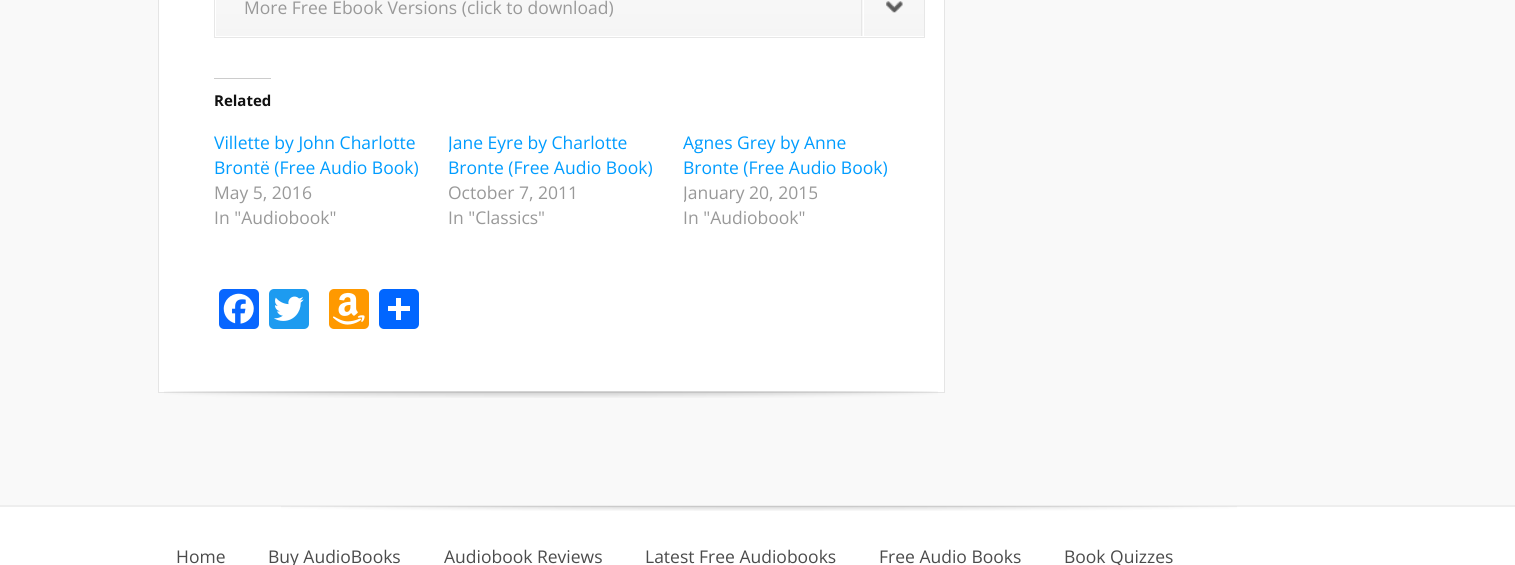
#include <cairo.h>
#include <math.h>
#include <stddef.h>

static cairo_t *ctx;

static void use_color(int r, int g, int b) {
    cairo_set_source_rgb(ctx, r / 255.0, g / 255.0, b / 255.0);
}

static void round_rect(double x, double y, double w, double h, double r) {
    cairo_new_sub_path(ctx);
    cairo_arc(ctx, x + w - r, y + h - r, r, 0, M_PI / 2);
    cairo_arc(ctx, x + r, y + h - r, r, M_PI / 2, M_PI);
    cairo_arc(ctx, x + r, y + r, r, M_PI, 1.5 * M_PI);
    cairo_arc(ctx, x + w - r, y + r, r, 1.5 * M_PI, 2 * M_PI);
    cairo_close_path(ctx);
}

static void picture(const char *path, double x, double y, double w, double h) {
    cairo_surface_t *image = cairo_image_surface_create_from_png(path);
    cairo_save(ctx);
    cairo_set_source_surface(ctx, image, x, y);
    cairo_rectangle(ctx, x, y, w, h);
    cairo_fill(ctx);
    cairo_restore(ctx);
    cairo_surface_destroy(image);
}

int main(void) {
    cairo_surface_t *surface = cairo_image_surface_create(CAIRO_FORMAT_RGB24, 1515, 565);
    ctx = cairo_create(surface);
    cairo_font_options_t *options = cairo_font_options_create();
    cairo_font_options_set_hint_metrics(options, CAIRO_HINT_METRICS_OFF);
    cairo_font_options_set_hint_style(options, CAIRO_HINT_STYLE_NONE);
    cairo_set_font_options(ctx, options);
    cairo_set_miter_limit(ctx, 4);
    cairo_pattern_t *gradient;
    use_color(255, 255, 255);
    cairo_paint(ctx);
    use_color(249, 249, 249);
    cairo_rectangle(ctx, 0, 0, 1515, 505);
    cairo_fill(ctx);
    use_color(238, 238, 238);
    cairo_rectangle(ctx, 0, 505, 1515, 2);
    cairo_fill(ctx);
    use_color(255, 255, 255);
    cairo_rectangle(ctx, 158.5, -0.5, 786, 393);
    cairo_fill_preserve(ctx);
    use_color(229, 229, 229);
    cairo_set_line_width(ctx, 1);
    cairo_stroke(ctx);
    cairo_rectangle(ctx, 214.5, -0.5, 710, 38);
    use_color(231, 231, 231);
    cairo_stroke(ctx);
    gradient = cairo_pattern_create_linear(570, -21, 570, 36);
    cairo_pattern_add_color_stop_rgba(gradient, 0, 0.976, 0.976, 0.976, 1);
    cairo_pattern_add_color_stop_rgba(gradient, 1, 0.961, 0.961, 0.961, 1);
    cairo_set_source(ctx, gradient);
    cairo_pattern_destroy(gradient);
    cairo_rectangle(ctx, 216, 0, 708, 36);
    cairo_fill(ctx);
    cairo_select_font_face(ctx, "Open Sans", CAIRO_FONT_SLANT_NORMAL, CAIRO_FONT_WEIGHT_NORMAL);
    cairo_set_font_size(ctx, 17.5);
    use_color(153, 153, 153);
    cairo_move_to(ctx, 244, 14);
    cairo_show_text(ctx, "More Free Ebook Versions (click to download)");
    use_color(231, 231, 231);
    cairo_rectangle(ctx, 861, 0, 1, 36);
    cairo_fill(ctx);
    use_color(255, 255, 255);
    cairo_rectangle(ctx, 863, 0, 1, 36);
    cairo_fill(ctx);
    picture("img1.png", 886, 1, 17, 12);
    use_color(204, 204, 204);
    cairo_rectangle(ctx, 214, 78, 57, 1);
    cairo_fill(ctx);
    cairo_select_font_face(ctx, "Open Sans", CAIRO_FONT_SLANT_NORMAL, CAIRO_FONT_WEIGHT_BOLD);
    cairo_set_font_size(ctx, 15);
    use_color(17, 17, 17);
    cairo_move_to(ctx, 214, 106);
    cairo_show_text(ctx, "Related");
    cairo_select_font_face(ctx, "Open Sans", CAIRO_FONT_SLANT_NORMAL, CAIRO_FONT_WEIGHT_NORMAL);
    cairo_set_font_size(ctx, 17.5);
    use_color(0, 156, 255);
    cairo_move_to(ctx, 214, 149);
    cairo_show_text(ctx, "Villette by John Charlotte");
    cairo_move_to(ctx, 214, 174);
    cairo_show_text(ctx, "Brontë (Free Audio Book)");
    use_color(153, 153, 153);
    cairo_move_to(ctx, 214, 199);
    cairo_show_text(ctx, "May 5, 2016");
    cairo_move_to(ctx, 214, 224);
    cairo_show_text(ctx, "In \"Audiobook\"");
    cairo_save(ctx);
    cairo_rectangle(ctx, 449, 130, 211, 50);
    cairo_clip(ctx);
    use_color(0, 156, 255);
    cairo_move_to(ctx, 448, 149);
    cairo_show_text(ctx, "Jane Eyre by Charlotte");
    cairo_restore(ctx);
    use_color(0, 156, 255);
    cairo_move_to(ctx, 448, 174);
    cairo_show_text(ctx, "Bronte (Free Audio Book)");
    use_color(153, 153, 153);
    cairo_move_to(ctx, 448, 199);
    cairo_show_text(ctx, "October 7, 2011");
    cairo_move_to(ctx, 448, 224);
    cairo_show_text(ctx, "In \"Classics\"");
    use_color(0, 156, 255);
    cairo_move_to(ctx, 683, 149);
    cairo_show_text(ctx, "Agnes Grey by Anne");
    cairo_move_to(ctx, 683, 174);
    cairo_show_text(ctx, "Bronte (Free Audio Book)");
    cairo_save(ctx);
    cairo_rectangle(ctx, 684, 180, 211, 25);
    cairo_clip(ctx);
    use_color(153, 153, 153);
    cairo_move_to(ctx, 683, 199);
    cairo_show_text(ctx, "January 20, 2015");
    cairo_restore(ctx);
    use_color(153, 153, 153);
    cairo_move_to(ctx, 683, 224);
    cairo_show_text(ctx, "In \"Audiobook\"");
    use_color(8, 102, 255);
    round_rect(219, 289, 40, 40, 5);
    cairo_fill(ctx);
    picture("img2.png", 223, 293, 31, 31);
    use_color(29, 155, 240);
    round_rect(269, 289, 40, 40, 5);
    cairo_fill(ctx);
    picture("img3.png", 274, 296, 30, 25);
    use_color(255, 153, 0);
    round_rect(329, 289, 40, 40, 5);
    cairo_fill(ctx);
    picture("img4.png", 333, 292, 32, 33);
    use_color(1, 102, 255);
    round_rect(379, 289, 40, 40, 5);
    cairo_fill(ctx);
    use_color(255, 255, 255);
    cairo_rectangle(ctx, 396, 298, 5, 22);
    cairo_fill(ctx);
    cairo_rectangle(ctx, 388, 306, 22, 5);
    cairo_fill(ctx);
    picture("img5.png", 164, 391, 774, 7);
    picture("img6.png", 281, 506, 956, 5);
    use_color(75, 75, 75);
    cairo_move_to(ctx, 176, 563);
    cairo_show_text(ctx, "Home");
    cairo_move_to(ctx, 268, 563);
    cairo_show_text(ctx, "Buy AudioBooks");
    cairo_move_to(ctx, 444, 563);
    cairo_show_text(ctx, "Audiobook Reviews");
    cairo_move_to(ctx, 645, 563);
    cairo_show_text(ctx, "Latest Free Audiobooks");
    cairo_move_to(ctx, 879, 563);
    cairo_show_text(ctx, "Free Audio Books");
    cairo_move_to(ctx, 1064, 563);
    cairo_show_text(ctx, "Book Quizzes");
    cairo_surface_write_to_png(surface, "result.png");
    cairo_font_options_destroy(options);
    cairo_destroy(ctx);
    cairo_surface_destroy(surface);
    return 0;
}
